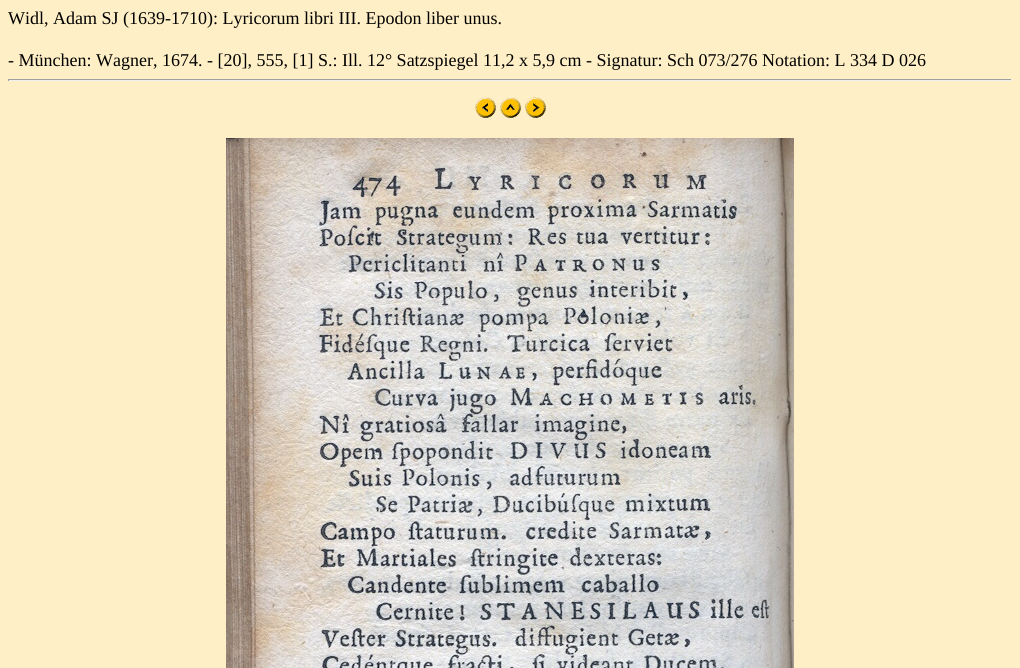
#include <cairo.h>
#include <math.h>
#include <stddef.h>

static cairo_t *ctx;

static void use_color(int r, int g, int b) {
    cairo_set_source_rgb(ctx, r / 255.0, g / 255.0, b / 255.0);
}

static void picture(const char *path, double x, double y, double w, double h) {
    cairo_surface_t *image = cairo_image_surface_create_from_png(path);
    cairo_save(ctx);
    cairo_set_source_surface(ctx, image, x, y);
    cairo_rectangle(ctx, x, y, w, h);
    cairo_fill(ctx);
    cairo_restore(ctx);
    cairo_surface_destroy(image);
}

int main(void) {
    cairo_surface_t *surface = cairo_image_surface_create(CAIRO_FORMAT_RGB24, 1020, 668);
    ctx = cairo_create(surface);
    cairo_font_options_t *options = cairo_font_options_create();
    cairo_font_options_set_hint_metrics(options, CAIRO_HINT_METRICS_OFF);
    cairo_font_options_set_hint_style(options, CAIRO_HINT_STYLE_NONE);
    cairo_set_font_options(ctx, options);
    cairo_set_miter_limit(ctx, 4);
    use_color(255, 239, 198);
    cairo_paint(ctx);
    cairo_select_font_face(ctx, "Liberation Serif", CAIRO_FONT_SLANT_NORMAL, CAIRO_FONT_WEIGHT_NORMAL);
    cairo_set_font_size(ctx, 18);
    use_color(0, 0, 0);
    cairo_move_to(ctx, 8, 24);
    cairo_show_text(ctx, "Widl, Adam SJ (1639-1710): Lyricorum libri III. Epodon liber unus.");
    cairo_move_to(ctx, 8, 66);
    cairo_show_text(ctx, "- München: Wagner, 1674. - [20], 555, [1] S.: Ill. 12° Satzspiegel 11,2 x 5,9 cm - Signatur: Sch 073/276 Notation: L 334 D 026");
    use_color(159, 159, 159);
    cairo_rectangle(ctx, 8, 79, 1004, 1);
    cairo_fill(ctx);
    use_color(238, 238, 238);
    cairo_rectangle(ctx, 1011, 79, 1, 2);
    cairo_fill(ctx);
    cairo_rectangle(ctx, 8, 80, 1004, 1);
    cairo_fill(ctx);
    use_color(159, 159, 159);
    cairo_rectangle(ctx, 8, 79, 1, 2);
    cairo_fill(ctx);
    picture("img1.png", 475, 97, 21, 21);
    picture("img2.png", 500, 97, 21, 21);
    picture("img3.png", 525, 97, 21, 21);
    picture("img4.png", 226, 138, 568, 530);
    cairo_surface_write_to_png(surface, "result.png");
    cairo_font_options_destroy(options);
    cairo_destroy(ctx);
    cairo_surface_destroy(surface);
    return 0;
}
